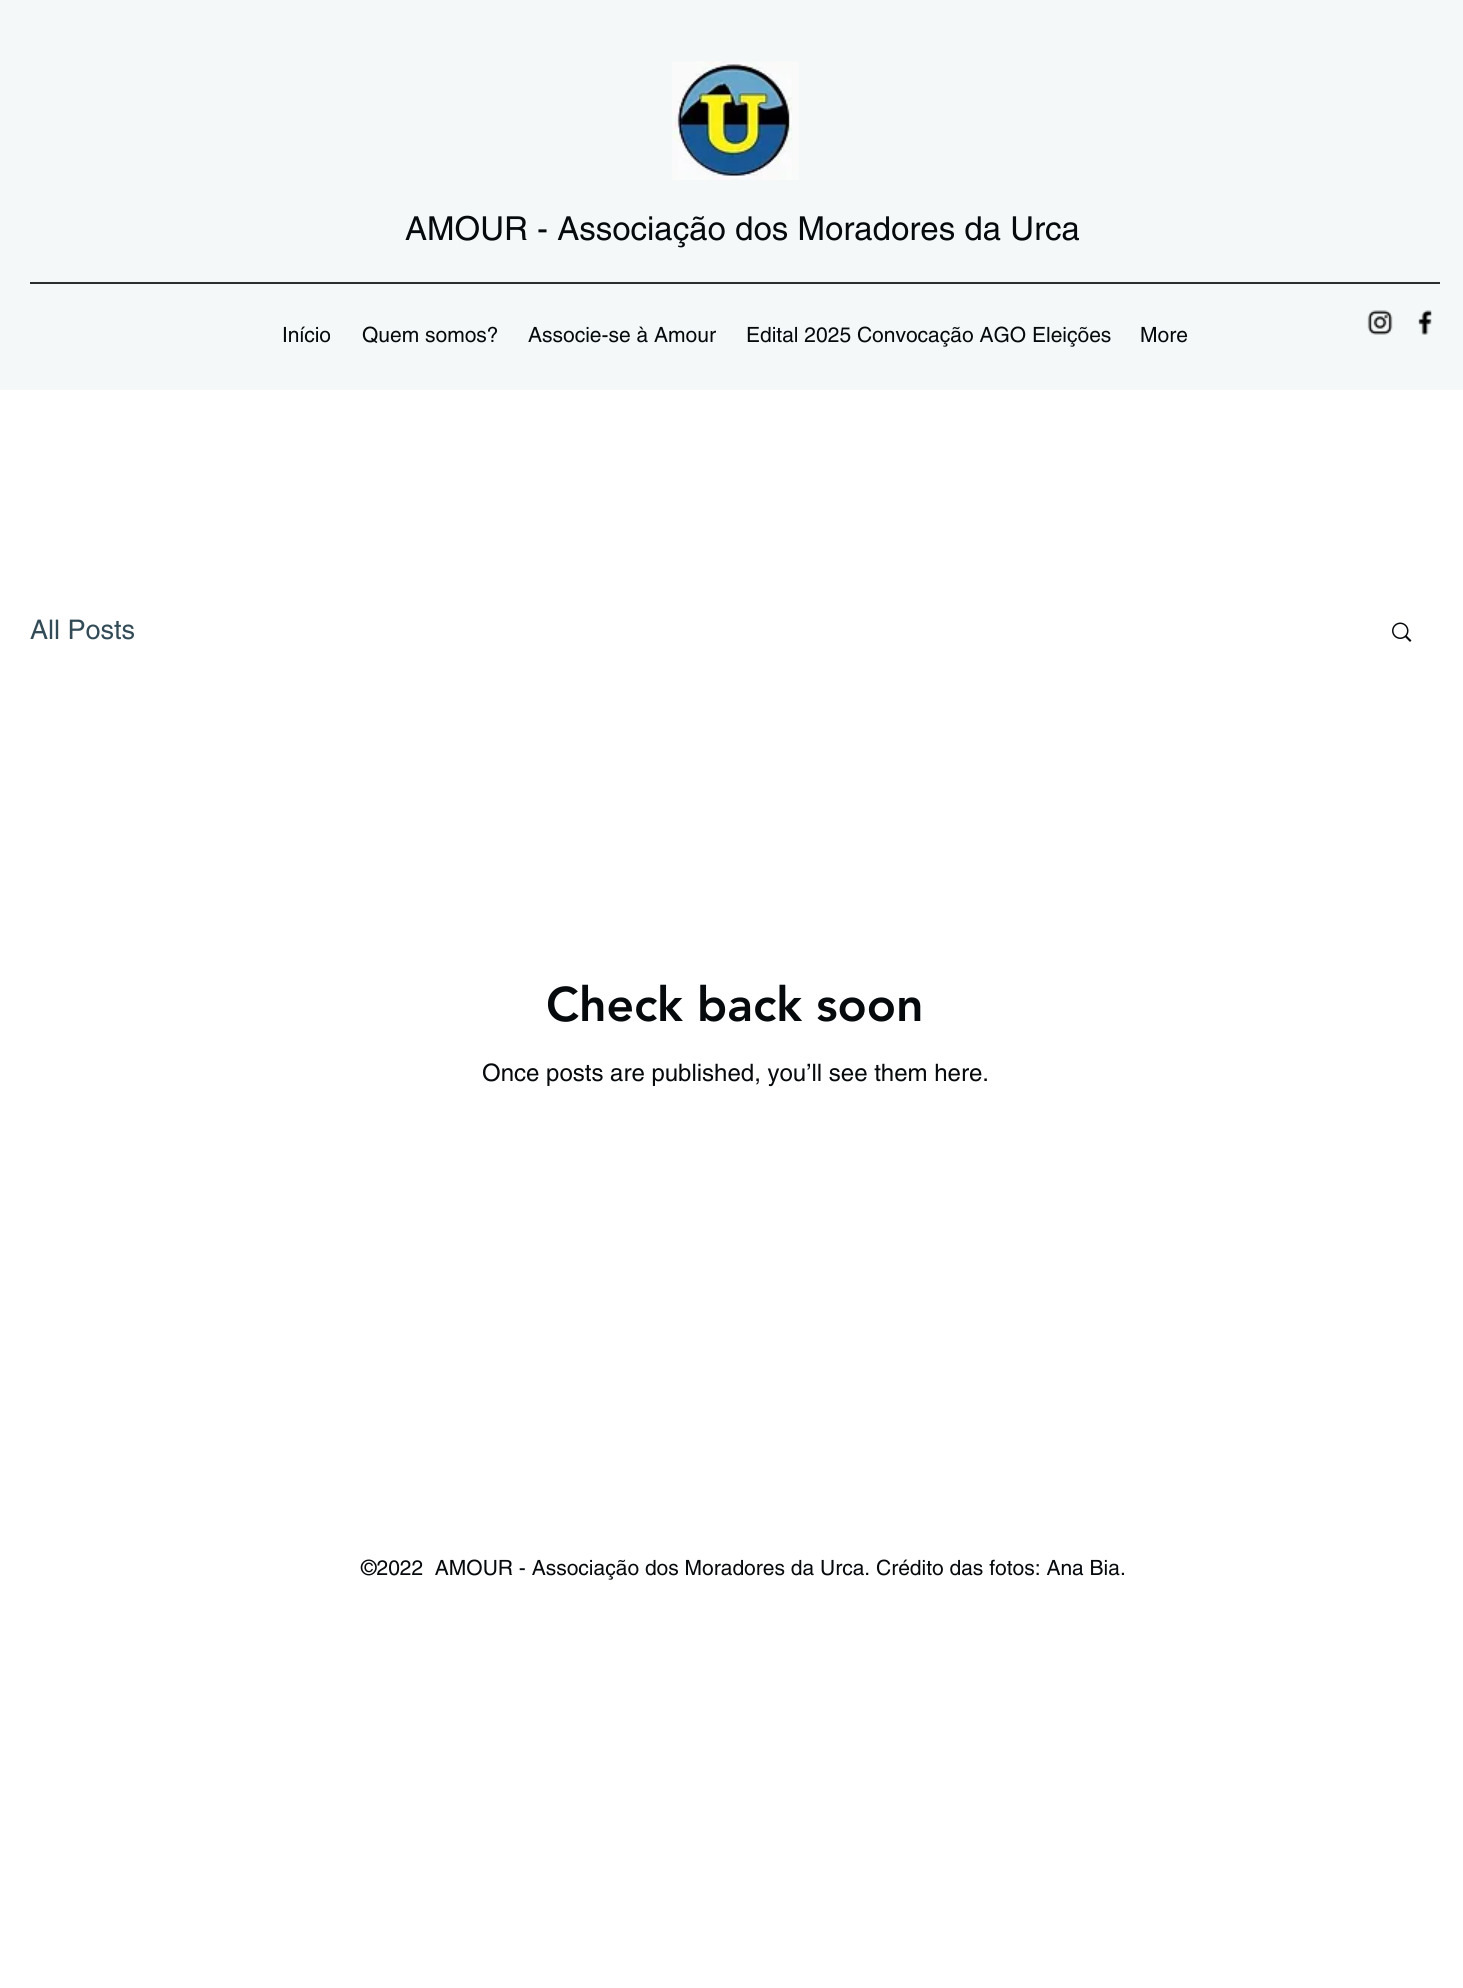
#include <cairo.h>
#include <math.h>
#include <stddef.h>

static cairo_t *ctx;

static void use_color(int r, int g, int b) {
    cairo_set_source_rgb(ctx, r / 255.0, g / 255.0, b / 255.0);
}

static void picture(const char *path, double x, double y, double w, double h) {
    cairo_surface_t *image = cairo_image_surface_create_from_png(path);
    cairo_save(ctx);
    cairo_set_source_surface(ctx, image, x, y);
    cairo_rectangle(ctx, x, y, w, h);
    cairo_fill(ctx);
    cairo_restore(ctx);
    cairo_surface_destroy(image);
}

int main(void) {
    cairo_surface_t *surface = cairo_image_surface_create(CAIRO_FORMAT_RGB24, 1463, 1988);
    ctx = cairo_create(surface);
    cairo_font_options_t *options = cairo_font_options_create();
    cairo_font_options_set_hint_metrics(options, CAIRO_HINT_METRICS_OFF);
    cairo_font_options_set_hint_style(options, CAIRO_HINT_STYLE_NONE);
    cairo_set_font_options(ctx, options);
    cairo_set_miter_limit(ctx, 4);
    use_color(255, 255, 255);
    cairo_paint(ctx);
    use_color(244, 248, 248);
    cairo_rectangle(ctx, 0, 0, 1463, 390);
    cairo_fill(ctx);
    picture("img1.png", 672, 61, 127, 119);
    cairo_select_font_face(ctx, "helvetica", CAIRO_FONT_SLANT_NORMAL, CAIRO_FONT_WEIGHT_NORMAL);
    cairo_set_font_size(ctx, 33);
    use_color(7, 10, 13);
    cairo_move_to(ctx, 405, 240);
    cairo_show_text(ctx, "AMOUR - Associação dos Moradores da Urca");
    use_color(43, 46, 48);
    cairo_rectangle(ctx, 30, 282, 1410, 2);
    cairo_fill(ctx);
    cairo_set_font_size(ctx, 21);
    use_color(7, 10, 13);
    cairo_move_to(ctx, 282, 342);
    cairo_show_text(ctx, "Início");
    cairo_move_to(ctx, 362, 342);
    cairo_show_text(ctx, "Quem somos?");
    cairo_move_to(ctx, 528, 342);
    cairo_show_text(ctx, "Associe-se à Amour");
    cairo_move_to(ctx, 746, 342);
    cairo_show_text(ctx, "Edital 2025 Convocação AGO Eleições");
    cairo_move_to(ctx, 1140, 342);
    cairo_show_text(ctx, "More");
    picture("img2.png", 1367, 310, 26, 25);
    picture("img3.png", 1418, 310, 14, 25);
    cairo_set_font_size(ctx, 27);
    use_color(50, 75, 87);
    cairo_move_to(ctx, 30, 639);
    cairo_show_text(ctx, "All Posts");
    picture("img4.png", 1392, 622, 20, 20);
    cairo_select_font_face(ctx, "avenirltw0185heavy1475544 Black", CAIRO_FONT_SLANT_NORMAL, CAIRO_FONT_WEIGHT_NORMAL);
    cairo_set_font_size(ctx, 48);
    use_color(7, 10, 13);
    cairo_move_to(ctx, 546, 1021);
    cairo_show_text(ctx, "Check back soon");
    cairo_select_font_face(ctx, "helvetica", CAIRO_FONT_SLANT_NORMAL, CAIRO_FONT_WEIGHT_NORMAL);
    cairo_set_font_size(ctx, 24);
    cairo_move_to(ctx, 482, 1081);
    cairo_show_text(ctx, "Once posts are published, you’ll see them here.");
    cairo_set_font_size(ctx, 21);
    cairo_move_to(ctx, 361, 1575);
    cairo_show_text(ctx, "©2022  AMOUR - Associação dos Moradores da Urca. Crédito das fotos: Ana Bia.");
    cairo_surface_write_to_png(surface, "result.png");
    cairo_font_options_destroy(options);
    cairo_destroy(ctx);
    cairo_surface_destroy(surface);
    return 0;
}
